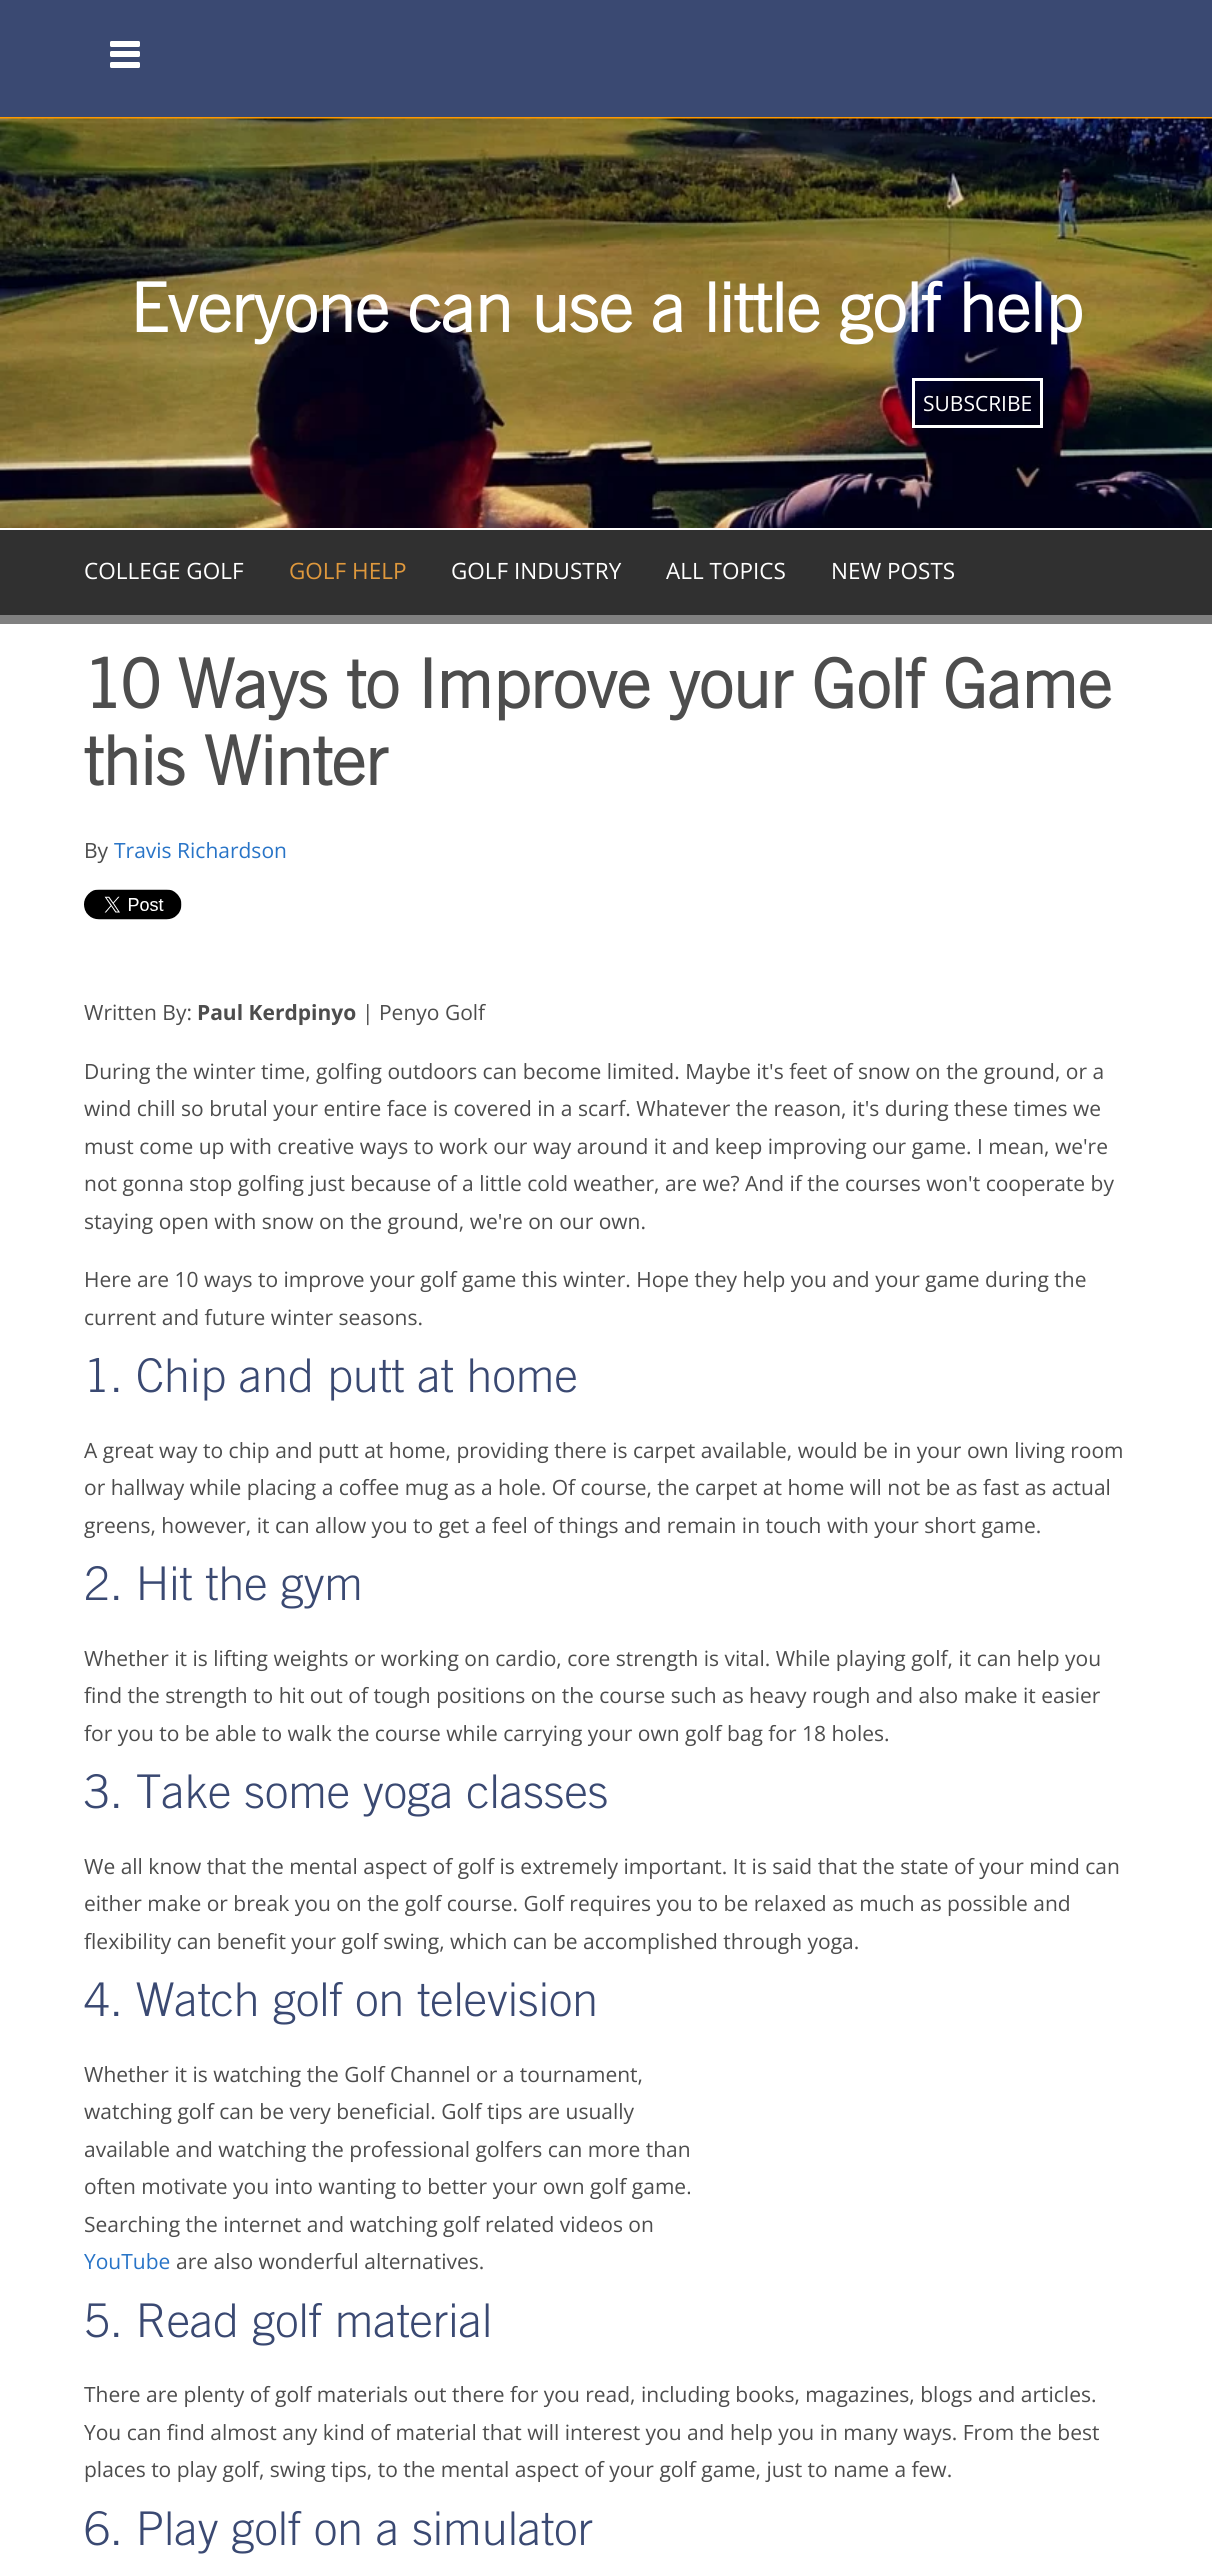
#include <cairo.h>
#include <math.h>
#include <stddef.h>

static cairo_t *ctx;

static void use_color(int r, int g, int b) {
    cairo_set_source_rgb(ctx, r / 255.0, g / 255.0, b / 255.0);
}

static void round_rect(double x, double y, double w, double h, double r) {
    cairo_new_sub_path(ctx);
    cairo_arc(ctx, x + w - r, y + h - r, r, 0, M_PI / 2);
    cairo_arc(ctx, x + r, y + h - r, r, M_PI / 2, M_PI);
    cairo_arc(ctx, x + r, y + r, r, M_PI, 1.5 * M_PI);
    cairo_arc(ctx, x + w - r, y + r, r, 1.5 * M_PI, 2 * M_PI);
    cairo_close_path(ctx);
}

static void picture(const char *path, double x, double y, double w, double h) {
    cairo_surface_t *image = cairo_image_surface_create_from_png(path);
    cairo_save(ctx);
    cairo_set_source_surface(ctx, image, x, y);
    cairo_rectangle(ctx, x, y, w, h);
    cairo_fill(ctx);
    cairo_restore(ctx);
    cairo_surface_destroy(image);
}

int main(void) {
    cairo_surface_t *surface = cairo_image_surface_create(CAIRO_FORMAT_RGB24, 1212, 2559);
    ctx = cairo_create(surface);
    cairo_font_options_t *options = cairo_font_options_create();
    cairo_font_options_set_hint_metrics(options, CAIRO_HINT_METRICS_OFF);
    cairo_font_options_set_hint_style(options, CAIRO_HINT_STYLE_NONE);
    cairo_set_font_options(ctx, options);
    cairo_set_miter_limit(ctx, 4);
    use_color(255, 255, 255);
    cairo_paint(ctx);
    use_color(58, 73, 114);
    cairo_rectangle(ctx, 0, 0, 1212, 117);
    cairo_fill(ctx);
    use_color(254, 153, 0);
    cairo_rectangle(ctx, 0, 117, 1212, 2);
    cairo_fill(ctx);
    use_color(255, 255, 255);
    round_rect(110, 51, 30, 6, 1.5);
    cairo_fill(ctx);
    round_rect(110, 41, 30, 6, 1.5);
    cairo_fill(ctx);
    round_rect(110, 62, 30, 6, 1.5);
    cairo_fill(ctx);
    picture("img1.png", 0, 118, 1212, 410);
    cairo_select_font_face(ctx, "Trade Gothic", CAIRO_FONT_SLANT_NORMAL, CAIRO_FONT_WEIGHT_BOLD);
    cairo_set_font_size(ctx, 67.5);
    cairo_move_to(ctx, 130, 332);
    cairo_show_text(ctx, "Everyone can use a little golf help");
    cairo_rectangle(ctx, 913.5, 379.5, 128, 47);
    cairo_set_line_width(ctx, 3);
    cairo_stroke(ctx);
    cairo_select_font_face(ctx, "Open Sans", CAIRO_FONT_SLANT_NORMAL, CAIRO_FONT_WEIGHT_NORMAL);
    cairo_set_font_size(ctx, 21);
    cairo_move_to(ctx, 923, 411);
    cairo_show_text(ctx, "SUBSCRIBE");
    use_color(48, 48, 48);
    cairo_rectangle(ctx, 0, 530, 1212, 85);
    cairo_fill(ctx);
    use_color(128, 128, 128);
    cairo_rectangle(ctx, 0, 615, 1212, 9);
    cairo_fill(ctx);
    cairo_set_font_size(ctx, 22.5);
    use_color(255, 255, 255);
    cairo_move_to(ctx, 84, 579);
    cairo_show_text(ctx, "COLLEGE GOLF");
    use_color(223, 152, 60);
    cairo_move_to(ctx, 289, 579);
    cairo_show_text(ctx, "GOLF HELP");
    use_color(255, 255, 255);
    cairo_move_to(ctx, 451, 579);
    cairo_show_text(ctx, "GOLF INDUSTRY");
    cairo_move_to(ctx, 666, 579);
    cairo_show_text(ctx, "ALL TOPICS");
    cairo_move_to(ctx, 831, 579);
    cairo_show_text(ctx, "NEW POSTS");
    cairo_select_font_face(ctx, "Trade Gothic", CAIRO_FONT_SLANT_NORMAL, CAIRO_FONT_WEIGHT_BOLD);
    cairo_set_font_size(ctx, 67.5);
    use_color(77, 77, 77);
    cairo_move_to(ctx, 84, 708);
    cairo_show_text(ctx, "10 Ways to Improve your Golf Game");
    cairo_move_to(ctx, 84, 785);
    cairo_show_text(ctx, "this Winter");
    cairo_select_font_face(ctx, "Open Sans", CAIRO_FONT_SLANT_NORMAL, CAIRO_FONT_WEIGHT_NORMAL);
    cairo_set_font_size(ctx, 21);
    cairo_move_to(ctx, 84, 858);
    cairo_show_text(ctx, "By");
    use_color(40, 116, 199);
    cairo_move_to(ctx, 114, 858);
    cairo_show_text(ctx, "Travis Richardson");
    picture("img2.png", 84, 889, 98, 31);
    use_color(77, 77, 77);
    cairo_move_to(ctx, 84, 1020);
    cairo_show_text(ctx, "Written By:");
    cairo_select_font_face(ctx, "Open Sans", CAIRO_FONT_SLANT_NORMAL, CAIRO_FONT_WEIGHT_BOLD);
    cairo_move_to(ctx, 197, 1020);
    cairo_show_text(ctx, "Paul Kerdpinyo");
    cairo_select_font_face(ctx, "Open Sans", CAIRO_FONT_SLANT_NORMAL, CAIRO_FONT_WEIGHT_NORMAL);
    cairo_move_to(ctx, 362, 1020);
    cairo_show_text(ctx, "| Penyo Golf");
    cairo_move_to(ctx, 84, 1079);
    cairo_show_text(ctx, "During the winter time, golfing outdoors can become limited. Maybe it's feet of snow on the ground, or a");
    cairo_move_to(ctx, 84, 1116);
    cairo_show_text(ctx, "wind chill so brutal your entire face is covered in a scarf. Whatever the reason, it's during these times we");
    cairo_move_to(ctx, 84, 1154);
    cairo_show_text(ctx, "must come up with creative ways to work our way around it and keep improving our game. I mean, we're");
    cairo_move_to(ctx, 84, 1191);
    cairo_show_text(ctx, "not gonna stop golfing just because of a little cold weather, are we? And if the courses won't cooperate by");
    cairo_move_to(ctx, 84, 1229);
    cairo_show_text(ctx, "staying open with snow on the ground, we're on our own.");
    cairo_move_to(ctx, 84, 1287);
    cairo_show_text(ctx, "Here are 10 ways to improve your golf game this winter. Hope they help you and your game during the");
    cairo_move_to(ctx, 84, 1325);
    cairo_show_text(ctx, "current and future winter seasons.");
    cairo_select_font_face(ctx, "Trade Gothic Light", CAIRO_FONT_SLANT_NORMAL, CAIRO_FONT_WEIGHT_NORMAL);
    cairo_set_font_size(ctx, 46.5);
    use_color(58, 73, 114);
    cairo_move_to(ctx, 84, 1392);
    cairo_show_text(ctx, "1. Chip and putt at home");
    cairo_select_font_face(ctx, "Open Sans", CAIRO_FONT_SLANT_NORMAL, CAIRO_FONT_WEIGHT_NORMAL);
    cairo_set_font_size(ctx, 21);
    use_color(77, 77, 77);
    cairo_move_to(ctx, 84, 1458);
    cairo_show_text(ctx, "A great way to chip and putt at home, providing there is carpet available, would be in your own living room");
    cairo_move_to(ctx, 84, 1495);
    cairo_show_text(ctx, "or hallway while placing a coffee mug as a hole. Of course, the carpet at home will not be as fast as actual");
    cairo_move_to(ctx, 84, 1533);
    cairo_show_text(ctx, "greens, however, it can allow you to get a feel of things and remain in touch with your short game.");
    cairo_select_font_face(ctx, "Trade Gothic Light", CAIRO_FONT_SLANT_NORMAL, CAIRO_FONT_WEIGHT_NORMAL);
    cairo_set_font_size(ctx, 46.5);
    use_color(58, 73, 114);
    cairo_move_to(ctx, 84, 1600);
    cairo_show_text(ctx, "2. Hit the gym");
    cairo_select_font_face(ctx, "Open Sans", CAIRO_FONT_SLANT_NORMAL, CAIRO_FONT_WEIGHT_NORMAL);
    cairo_set_font_size(ctx, 21);
    use_color(77, 77, 77);
    cairo_move_to(ctx, 84, 1666);
    cairo_show_text(ctx, "Whether it is lifting weights or working on cardio, core strength is vital. While playing golf, it can help you");
    cairo_move_to(ctx, 84, 1703);
    cairo_show_text(ctx, "find the strength to hit out of tough positions on the course such as heavy rough and also make it easier");
    cairo_move_to(ctx, 84, 1741);
    cairo_show_text(ctx, "for you to be able to walk the course while carrying your own golf bag for 18 holes.");
    cairo_select_font_face(ctx, "Trade Gothic Light", CAIRO_FONT_SLANT_NORMAL, CAIRO_FONT_WEIGHT_NORMAL);
    cairo_set_font_size(ctx, 46.5);
    use_color(58, 73, 114);
    cairo_move_to(ctx, 84, 1808);
    cairo_show_text(ctx, "3. Take some yoga classes");
    cairo_select_font_face(ctx, "Open Sans", CAIRO_FONT_SLANT_NORMAL, CAIRO_FONT_WEIGHT_NORMAL);
    cairo_set_font_size(ctx, 21);
    use_color(77, 77, 77);
    cairo_move_to(ctx, 84, 1874);
    cairo_show_text(ctx, "We all know that the mental aspect of golf is extremely important. It is said that the state of your mind can");
    cairo_move_to(ctx, 84, 1911);
    cairo_show_text(ctx, "either make or break you on the golf course. Golf requires you to be relaxed as much as possible and");
    cairo_move_to(ctx, 84, 1949);
    cairo_show_text(ctx, "flexibility can benefit your golf swing, which can be accomplished through yoga.");
    cairo_select_font_face(ctx, "Trade Gothic Light", CAIRO_FONT_SLANT_NORMAL, CAIRO_FONT_WEIGHT_NORMAL);
    cairo_set_font_size(ctx, 46.5);
    use_color(58, 73, 114);
    cairo_move_to(ctx, 84, 2016);
    cairo_show_text(ctx, "4. Watch golf on television");
    cairo_select_font_face(ctx, "Open Sans", CAIRO_FONT_SLANT_NORMAL, CAIRO_FONT_WEIGHT_NORMAL);
    cairo_set_font_size(ctx, 21);
    use_color(77, 77, 77);
    cairo_move_to(ctx, 84, 2082);
    cairo_show_text(ctx, "Whether it is watching the Golf Channel or a tournament,");
    cairo_move_to(ctx, 84, 2119);
    cairo_show_text(ctx, "watching golf can be very beneficial. Golf tips are usually");
    cairo_move_to(ctx, 84, 2157);
    cairo_show_text(ctx, "available and watching the professional golfers can more than");
    cairo_move_to(ctx, 84, 2194);
    cairo_show_text(ctx, "often motivate you into wanting to better your own golf game.");
    cairo_move_to(ctx, 84, 2232);
    cairo_show_text(ctx, "Searching the internet and watching golf related videos on");
    use_color(40, 116, 199);
    cairo_move_to(ctx, 84, 2269);
    cairo_show_text(ctx, "YouTube");
    use_color(77, 77, 77);
    cairo_move_to(ctx, 176, 2269);
    cairo_show_text(ctx, "are also wonderful alternatives.");
    cairo_select_font_face(ctx, "Trade Gothic Light", CAIRO_FONT_SLANT_NORMAL, CAIRO_FONT_WEIGHT_NORMAL);
    cairo_set_font_size(ctx, 46.5);
    use_color(58, 73, 114);
    cairo_move_to(ctx, 84, 2337);
    cairo_show_text(ctx, "5. Read golf material");
    cairo_select_font_face(ctx, "Open Sans", CAIRO_FONT_SLANT_NORMAL, CAIRO_FONT_WEIGHT_NORMAL);
    cairo_set_font_size(ctx, 21);
    use_color(77, 77, 77);
    cairo_move_to(ctx, 84, 2402);
    cairo_show_text(ctx, "There are plenty of golf materials out there for you read, including books, magazines, blogs and articles.");
    cairo_move_to(ctx, 84, 2440);
    cairo_show_text(ctx, "You can find almost any kind of material that will interest you and help you in many ways. From the best");
    cairo_move_to(ctx, 84, 2477);
    cairo_show_text(ctx, "places to play golf, swing tips, to the mental aspect of your golf game, just to name a few.");
    cairo_select_font_face(ctx, "Trade Gothic Light", CAIRO_FONT_SLANT_NORMAL, CAIRO_FONT_WEIGHT_NORMAL);
    cairo_set_font_size(ctx, 46.5);
    use_color(58, 73, 114);
    cairo_move_to(ctx, 84, 2545);
    cairo_show_text(ctx, "6. Play golf on a simulator");
    cairo_surface_write_to_png(surface, "result.png");
    cairo_font_options_destroy(options);
    cairo_destroy(ctx);
    cairo_surface_destroy(surface);
    return 0;
}
